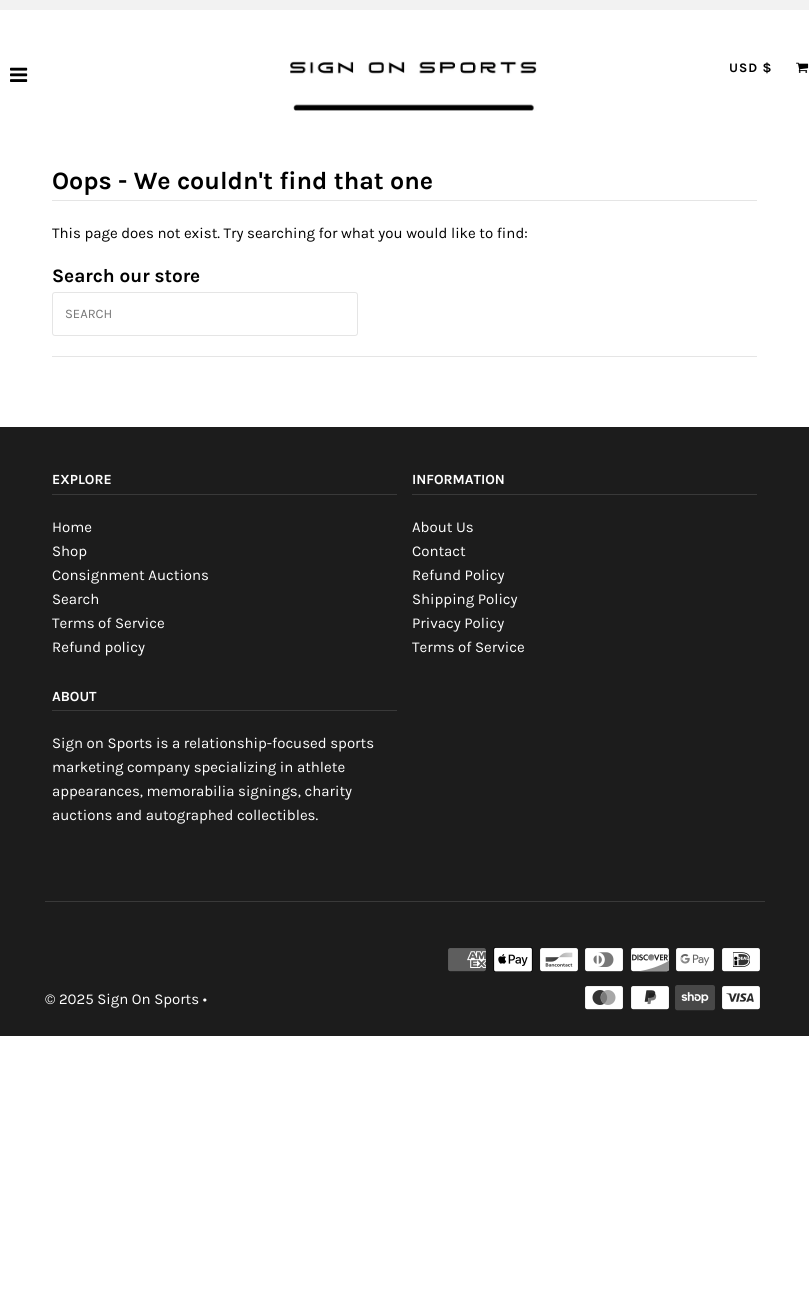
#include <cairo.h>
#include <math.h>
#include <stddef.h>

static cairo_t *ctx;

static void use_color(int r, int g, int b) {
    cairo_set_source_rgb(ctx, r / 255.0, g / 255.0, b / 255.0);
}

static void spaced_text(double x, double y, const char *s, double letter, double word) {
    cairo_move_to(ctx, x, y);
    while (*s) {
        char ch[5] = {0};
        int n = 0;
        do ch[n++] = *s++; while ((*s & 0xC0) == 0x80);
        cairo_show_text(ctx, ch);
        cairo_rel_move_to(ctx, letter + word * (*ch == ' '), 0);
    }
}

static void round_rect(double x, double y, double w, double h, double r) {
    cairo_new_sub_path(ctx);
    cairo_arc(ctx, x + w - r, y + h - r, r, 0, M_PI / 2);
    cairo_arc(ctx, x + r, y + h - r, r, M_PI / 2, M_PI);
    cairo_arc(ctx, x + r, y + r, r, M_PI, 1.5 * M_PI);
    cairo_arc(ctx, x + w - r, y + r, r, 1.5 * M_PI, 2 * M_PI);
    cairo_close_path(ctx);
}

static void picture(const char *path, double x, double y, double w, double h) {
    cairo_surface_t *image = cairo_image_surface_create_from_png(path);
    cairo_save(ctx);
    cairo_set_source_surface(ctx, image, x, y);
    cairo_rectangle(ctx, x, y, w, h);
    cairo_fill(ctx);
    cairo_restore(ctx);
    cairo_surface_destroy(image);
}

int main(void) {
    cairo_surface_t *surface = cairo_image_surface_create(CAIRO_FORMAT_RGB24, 809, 1308);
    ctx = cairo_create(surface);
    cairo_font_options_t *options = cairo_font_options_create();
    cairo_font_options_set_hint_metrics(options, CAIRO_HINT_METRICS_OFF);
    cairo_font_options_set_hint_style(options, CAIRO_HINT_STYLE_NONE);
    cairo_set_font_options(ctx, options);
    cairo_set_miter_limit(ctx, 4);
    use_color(255, 255, 255);
    cairo_paint(ctx);
    use_color(242, 242, 242);
    cairo_rectangle(ctx, 0, 0, 809, 10);
    cairo_fill(ctx);
    picture("img1.png", 10, 67, 18, 15);
    picture("img2.png", 290, 61, 247, 50);
    cairo_select_font_face(ctx, "Karla", CAIRO_FONT_SLANT_NORMAL, CAIRO_FONT_WEIGHT_BOLD);
    cairo_set_font_size(ctx, 13);
    use_color(0, 0, 0);
    spaced_text(729, 72, "USD $", 1, 0);
    picture("img3.png", 796, 62, 13, 11);
    use_color(229, 229, 229);
    cairo_rectangle(ctx, 52, 200, 705, 1);
    cairo_fill(ctx);
    cairo_set_font_size(ctx, 25);
    use_color(0, 0, 0);
    cairo_move_to(ctx, 52, 189);
    cairo_show_text(ctx, "Oops - We couldn't find that one");
    cairo_select_font_face(ctx, "Karla", CAIRO_FONT_SLANT_NORMAL, CAIRO_FONT_WEIGHT_NORMAL);
    cairo_set_font_size(ctx, 15);
    cairo_move_to(ctx, 52, 238);
    cairo_show_text(ctx, "This page does not exist. Try searching for what you would like to find:");
    use_color(229, 229, 229);
    cairo_rectangle(ctx, 52, 356, 705, 1);
    cairo_fill(ctx);
    cairo_select_font_face(ctx, "Karla", CAIRO_FONT_SLANT_NORMAL, CAIRO_FONT_WEIGHT_BOLD);
    cairo_set_font_size(ctx, 19);
    use_color(0, 0, 0);
    cairo_move_to(ctx, 52, 282);
    cairo_show_text(ctx, "Search our store");
    round_rect(52.5, 292.5, 305, 43, 2.5);
    use_color(229, 229, 229);
    cairo_set_line_width(ctx, 1);
    cairo_stroke(ctx);
    cairo_select_font_face(ctx, "Karla", CAIRO_FONT_SLANT_NORMAL, CAIRO_FONT_WEIGHT_NORMAL);
    cairo_set_font_size(ctx, 13);
    use_color(117, 117, 117);
    cairo_move_to(ctx, 65, 318);
    cairo_show_text(ctx, "SEARCH");
    use_color(28, 28, 28);
    cairo_rectangle(ctx, 0, 427, 809, 609);
    cairo_fill(ctx);
    use_color(57, 57, 57);
    cairo_rectangle(ctx, 52, 494, 345, 1);
    cairo_fill(ctx);
    cairo_select_font_face(ctx, "Karla", CAIRO_FONT_SLANT_NORMAL, CAIRO_FONT_WEIGHT_BOLD);
    cairo_set_font_size(ctx, 14);
    use_color(255, 255, 255);
    cairo_move_to(ctx, 52, 484);
    cairo_show_text(ctx, "EXPLORE");
    cairo_select_font_face(ctx, "Karla", CAIRO_FONT_SLANT_NORMAL, CAIRO_FONT_WEIGHT_NORMAL);
    cairo_set_font_size(ctx, 15);
    cairo_move_to(ctx, 52, 532);
    cairo_show_text(ctx, "Home");
    cairo_move_to(ctx, 52, 556);
    cairo_show_text(ctx, "Shop");
    cairo_move_to(ctx, 52, 580);
    cairo_show_text(ctx, "Consignment Auctions");
    cairo_move_to(ctx, 52, 604);
    cairo_show_text(ctx, "Search");
    cairo_move_to(ctx, 52, 628);
    cairo_show_text(ctx, "Terms of Service");
    cairo_move_to(ctx, 52, 652);
    cairo_show_text(ctx, "Refund policy");
    use_color(57, 57, 57);
    cairo_rectangle(ctx, 412, 494, 345, 1);
    cairo_fill(ctx);
    cairo_select_font_face(ctx, "Karla", CAIRO_FONT_SLANT_NORMAL, CAIRO_FONT_WEIGHT_BOLD);
    cairo_set_font_size(ctx, 14);
    use_color(255, 255, 255);
    cairo_move_to(ctx, 412, 484);
    cairo_show_text(ctx, "INFORMATION");
    cairo_select_font_face(ctx, "Karla", CAIRO_FONT_SLANT_NORMAL, CAIRO_FONT_WEIGHT_NORMAL);
    cairo_set_font_size(ctx, 15);
    cairo_move_to(ctx, 412, 532);
    cairo_show_text(ctx, "About Us");
    cairo_move_to(ctx, 412, 556);
    cairo_show_text(ctx, "Contact");
    cairo_move_to(ctx, 412, 580);
    cairo_show_text(ctx, "Refund Policy");
    cairo_move_to(ctx, 412, 604);
    cairo_show_text(ctx, "Shipping Policy");
    cairo_move_to(ctx, 412, 628);
    cairo_show_text(ctx, "Privacy Policy");
    cairo_move_to(ctx, 412, 652);
    cairo_show_text(ctx, "Terms of Service");
    use_color(57, 57, 57);
    cairo_rectangle(ctx, 52, 710, 345, 1);
    cairo_fill(ctx);
    cairo_select_font_face(ctx, "Karla", CAIRO_FONT_SLANT_NORMAL, CAIRO_FONT_WEIGHT_BOLD);
    cairo_set_font_size(ctx, 14);
    use_color(255, 255, 255);
    cairo_move_to(ctx, 52, 701);
    cairo_show_text(ctx, "ABOUT");
    cairo_select_font_face(ctx, "Karla", CAIRO_FONT_SLANT_NORMAL, CAIRO_FONT_WEIGHT_NORMAL);
    cairo_set_font_size(ctx, 15);
    cairo_move_to(ctx, 52, 748);
    cairo_show_text(ctx, "Sign on Sports is a relationship-focused sports");
    cairo_move_to(ctx, 52, 772);
    cairo_show_text(ctx, "marketing company specializing in athlete");
    cairo_move_to(ctx, 52, 796);
    cairo_show_text(ctx, "appearances, memorabilia signings, charity");
    cairo_move_to(ctx, 52, 820);
    cairo_show_text(ctx, "auctions and autographed collectibles.");
    use_color(57, 57, 57);
    cairo_rectangle(ctx, 45, 901, 720, 1);
    cairo_fill(ctx);
    use_color(255, 255, 255);
    cairo_move_to(ctx, 45, 1004);
    cairo_show_text(ctx, "© 2025 Sign On Sports •");
    picture("img4.png", 448, 948, 38, 24);
    picture("img5.png", 493, 947, 40, 25);
    picture("img6.png", 540, 948, 38, 24);
    picture("img7.png", 585, 948, 38, 24);
    picture("img8.png", 631, 948, 38, 24);
    picture("img9.png", 676, 948, 38, 24);
    picture("img10.png", 722, 948, 38, 24);
    picture("img11.png", 585, 986, 38, 24);
    picture("img12.png", 631, 986, 38, 24);
    picture("img13.png", 675, 985, 40, 26);
    picture("img14.png", 722, 986, 38, 24);
    cairo_surface_write_to_png(surface, "result.png");
    cairo_font_options_destroy(options);
    cairo_destroy(ctx);
    cairo_surface_destroy(surface);
    return 0;
}
